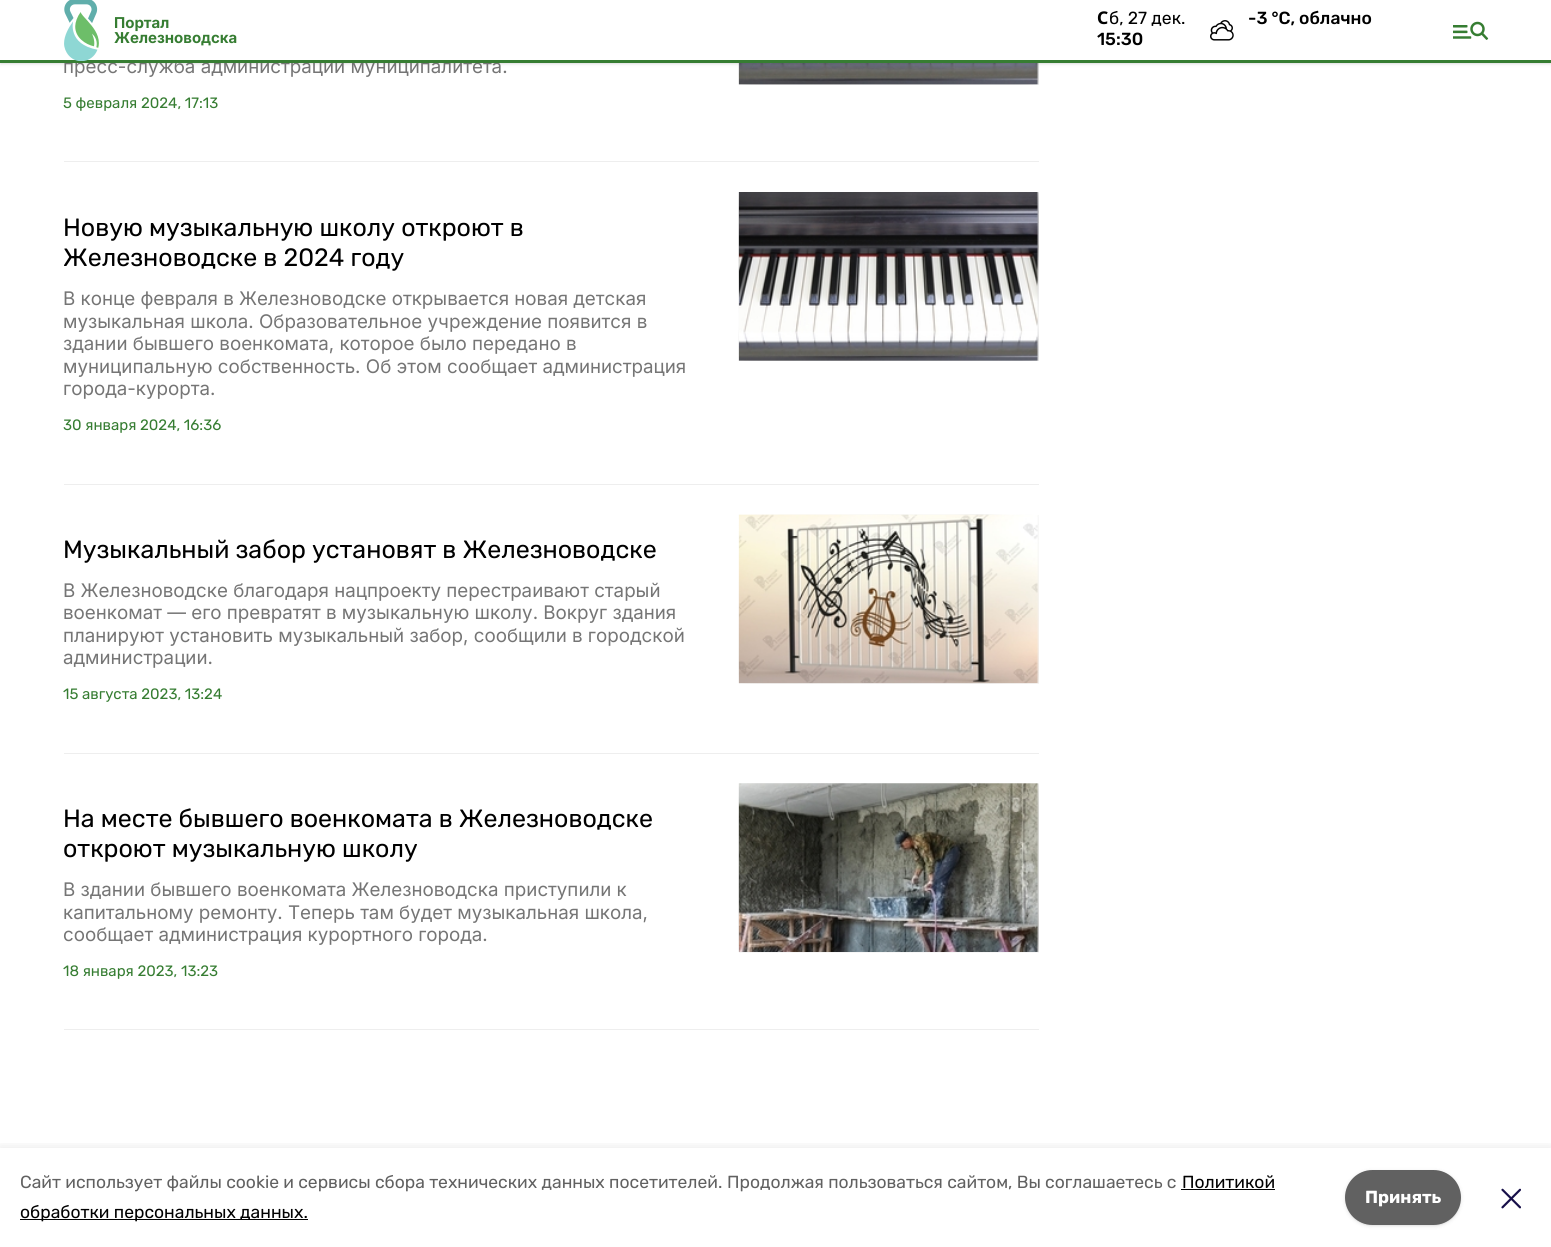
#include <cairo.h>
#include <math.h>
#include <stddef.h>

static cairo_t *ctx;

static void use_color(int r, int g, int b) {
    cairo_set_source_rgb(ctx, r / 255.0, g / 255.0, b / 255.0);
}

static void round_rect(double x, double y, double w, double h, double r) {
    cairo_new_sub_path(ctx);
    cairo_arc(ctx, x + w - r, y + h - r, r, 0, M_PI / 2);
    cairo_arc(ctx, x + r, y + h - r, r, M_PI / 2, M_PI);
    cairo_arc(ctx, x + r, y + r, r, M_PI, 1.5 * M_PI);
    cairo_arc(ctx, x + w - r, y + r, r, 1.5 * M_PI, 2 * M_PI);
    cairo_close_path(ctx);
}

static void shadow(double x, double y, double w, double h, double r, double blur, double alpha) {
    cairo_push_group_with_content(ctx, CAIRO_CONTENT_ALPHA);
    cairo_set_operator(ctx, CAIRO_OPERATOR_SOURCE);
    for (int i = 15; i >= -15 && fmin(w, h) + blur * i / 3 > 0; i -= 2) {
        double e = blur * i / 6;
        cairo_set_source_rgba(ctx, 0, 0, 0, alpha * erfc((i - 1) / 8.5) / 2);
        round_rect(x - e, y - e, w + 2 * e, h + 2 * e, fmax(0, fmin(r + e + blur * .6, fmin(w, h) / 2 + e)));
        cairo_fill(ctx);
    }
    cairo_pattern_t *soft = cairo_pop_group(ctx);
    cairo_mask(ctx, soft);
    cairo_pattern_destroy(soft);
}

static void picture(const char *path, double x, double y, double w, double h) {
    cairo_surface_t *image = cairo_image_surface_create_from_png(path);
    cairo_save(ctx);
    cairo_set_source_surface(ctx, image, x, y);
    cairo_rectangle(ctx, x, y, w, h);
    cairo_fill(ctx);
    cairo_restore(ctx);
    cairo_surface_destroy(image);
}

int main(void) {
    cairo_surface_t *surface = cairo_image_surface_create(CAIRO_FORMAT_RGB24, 1551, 1247);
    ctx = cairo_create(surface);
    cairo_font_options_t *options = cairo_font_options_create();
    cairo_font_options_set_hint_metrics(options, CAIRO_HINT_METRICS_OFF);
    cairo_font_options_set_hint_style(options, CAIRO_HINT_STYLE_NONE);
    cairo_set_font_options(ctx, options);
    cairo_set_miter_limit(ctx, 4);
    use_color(255, 255, 255);
    cairo_paint(ctx);
    use_color(247, 247, 247);
    cairo_rectangle(ctx, 739, 63, 300, 22);
    cairo_fill(ctx);
    picture("img4.png", 738, 63, 301, 22);
    picture("img5.png", 738, 63, 300, 22);
    use_color(0, 0, 0);
    shadow(1, 3, 1549, 60, 0, 1, 0.1);
    shadow(0, 1, 1551, 63, 0, 2, 0.1);
    cairo_select_font_face(ctx, "Inter", CAIRO_FONT_SLANT_NORMAL, CAIRO_FONT_WEIGHT_NORMAL);
    cairo_set_font_size(ctx, 18.75);
    use_color(117, 117, 117);
    cairo_move_to(ctx, 63, 73);
    cairo_show_text(ctx, "пресс-служба администрации муниципалитета.");
    use_color(255, 255, 255);
    cairo_rectangle(ctx, 0, 0, 1551, 60);
    cairo_fill(ctx);
    use_color(54, 125, 50);
    cairo_rectangle(ctx, 0, 60, 1551, 3);
    cairo_fill(ctx);
    picture("img1.png", 64, 0, 35, 61);
    cairo_select_font_face(ctx, "Inter", CAIRO_FONT_SLANT_NORMAL, CAIRO_FONT_WEIGHT_BOLD);
    cairo_set_font_size(ctx, 15);
    cairo_move_to(ctx, 114, 28);
    cairo_show_text(ctx, "Портал");
    cairo_move_to(ctx, 114, 43);
    cairo_show_text(ctx, "Железноводска");
    cairo_select_font_face(ctx, "Noto Sans", CAIRO_FONT_SLANT_NORMAL, CAIRO_FONT_WEIGHT_BOLD);
    cairo_set_font_size(ctx, 17.5);
    use_color(0, 0, 0);
    cairo_move_to(ctx, 1097, 24);
    cairo_show_text(ctx, "С");
    cairo_select_font_face(ctx, "Rubik", CAIRO_FONT_SLANT_NORMAL, CAIRO_FONT_WEIGHT_NORMAL);
    cairo_move_to(ctx, 1109, 24);
    cairo_show_text(ctx, "б, 27 дек.");
    cairo_select_font_face(ctx, "Rubik Medium", CAIRO_FONT_SLANT_NORMAL, CAIRO_FONT_WEIGHT_NORMAL);
    cairo_move_to(ctx, 1097, 45);
    cairo_show_text(ctx, "15:30");
    picture("img2.png", 1210, 20, 24, 21);
    cairo_move_to(ctx, 1248, 24);
    cairo_show_text(ctx, "-3 °С, облачно");
    picture("img3.png", 1453, 21, 36, 19);
    use_color(238, 238, 238);
    cairo_rectangle(ctx, 64, 161, 975, 1);
    cairo_fill(ctx);
    cairo_select_font_face(ctx, "Rubik", CAIRO_FONT_SLANT_NORMAL, CAIRO_FONT_WEIGHT_NORMAL);
    cairo_set_font_size(ctx, 15);
    use_color(54, 125, 50);
    cairo_move_to(ctx, 63, 108);
    cairo_show_text(ctx, "5 февраля 2024, 17:13");
    use_color(238, 238, 238);
    cairo_rectangle(ctx, 64, 484, 975, 1);
    cairo_fill(ctx);
    cairo_set_font_size(ctx, 25);
    use_color(0, 0, 0);
    cairo_move_to(ctx, 63, 236);
    cairo_show_text(ctx, "Новую музыкальную школу откроют в");
    cairo_move_to(ctx, 63, 266);
    cairo_show_text(ctx, "Железноводске в 2024 году");
    cairo_select_font_face(ctx, "Inter", CAIRO_FONT_SLANT_NORMAL, CAIRO_FONT_WEIGHT_NORMAL);
    cairo_set_font_size(ctx, 18.75);
    use_color(117, 117, 117);
    cairo_move_to(ctx, 63, 305);
    cairo_show_text(ctx, "В конце февраля в Железноводске открывается новая детская");
    cairo_move_to(ctx, 63, 328);
    cairo_show_text(ctx, "музыкальная школа. Образовательное учреждение появится в");
    cairo_move_to(ctx, 63, 350);
    cairo_show_text(ctx, "здании бывшего военкомата, которое было передано в");
    cairo_move_to(ctx, 63, 373);
    cairo_show_text(ctx, "муниципальную собственность. Об этом сообщает администрация");
    cairo_move_to(ctx, 63, 395);
    cairo_show_text(ctx, "города-курорта.");
    cairo_select_font_face(ctx, "Rubik", CAIRO_FONT_SLANT_NORMAL, CAIRO_FONT_WEIGHT_NORMAL);
    cairo_set_font_size(ctx, 15);
    use_color(54, 125, 50);
    cairo_move_to(ctx, 63, 430);
    cairo_show_text(ctx, "30 января 2024, 16:36");
    use_color(247, 247, 247);
    cairo_rectangle(ctx, 739, 193, 300, 168);
    cairo_fill(ctx);
    picture("img6.png", 738, 192, 301, 169);
    picture("img7.png", 738, 192, 300, 169);
    use_color(238, 238, 238);
    cairo_rectangle(ctx, 64, 753, 975, 1);
    cairo_fill(ctx);
    cairo_set_font_size(ctx, 25);
    use_color(0, 0, 0);
    cairo_move_to(ctx, 63, 558);
    cairo_show_text(ctx, "Музыкальный забор установят в Железноводске");
    cairo_select_font_face(ctx, "Inter", CAIRO_FONT_SLANT_NORMAL, CAIRO_FONT_WEIGHT_NORMAL);
    cairo_set_font_size(ctx, 18.75);
    use_color(117, 117, 117);
    cairo_move_to(ctx, 63, 597);
    cairo_show_text(ctx, "В Железноводске благодаря нацпроекту перестраивают старый");
    cairo_move_to(ctx, 63, 619);
    cairo_show_text(ctx, "военкомат — его превратят в музыкальную школу. Вокруг здания");
    cairo_move_to(ctx, 63, 642);
    cairo_show_text(ctx, "планируют установить музыкальный забор, сообщили в городской");
    cairo_move_to(ctx, 63, 664);
    cairo_show_text(ctx, "администрации.");
    cairo_select_font_face(ctx, "Rubik", CAIRO_FONT_SLANT_NORMAL, CAIRO_FONT_WEIGHT_NORMAL);
    cairo_set_font_size(ctx, 15);
    use_color(54, 125, 50);
    cairo_move_to(ctx, 63, 699);
    cairo_show_text(ctx, "15 августа 2023, 13:24");
    use_color(247, 247, 247);
    cairo_rectangle(ctx, 739, 515, 300, 169);
    cairo_fill(ctx);
    picture("img8.png", 738, 514, 301, 170);
    picture("img9.png", 738, 514, 300, 170);
    use_color(238, 238, 238);
    cairo_rectangle(ctx, 64, 1029, 975, 1);
    cairo_fill(ctx);
    cairo_set_font_size(ctx, 25);
    use_color(0, 0, 0);
    cairo_move_to(ctx, 63, 827);
    cairo_show_text(ctx, "На месте бывшего военкомата в Железноводске");
    cairo_move_to(ctx, 63, 857);
    cairo_show_text(ctx, "откроют музыкальную школу");
    cairo_select_font_face(ctx, "Inter", CAIRO_FONT_SLANT_NORMAL, CAIRO_FONT_WEIGHT_NORMAL);
    cairo_set_font_size(ctx, 18.75);
    use_color(117, 117, 117);
    cairo_move_to(ctx, 63, 896);
    cairo_show_text(ctx, "В здании бывшего военкомата Железноводска приступили к");
    cairo_move_to(ctx, 63, 919);
    cairo_show_text(ctx, "капитальному ремонту. Теперь там будет музыкальная школа,");
    cairo_move_to(ctx, 63, 941);
    cairo_show_text(ctx, "сообщает администрация курортного города.");
    cairo_select_font_face(ctx, "Rubik", CAIRO_FONT_SLANT_NORMAL, CAIRO_FONT_WEIGHT_NORMAL);
    cairo_set_font_size(ctx, 15);
    use_color(54, 125, 50);
    cairo_move_to(ctx, 63, 976);
    cairo_show_text(ctx, "18 января 2023, 13:23");
    use_color(247, 247, 247);
    cairo_rectangle(ctx, 739, 784, 300, 169);
    cairo_fill(ctx);
    picture("img10.png", 738, 783, 301, 169);
    picture("img11.png", 738, 783, 300, 169);
    cairo_save(ctx);
    cairo_rectangle(ctx, 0, 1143, 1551, 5);
    cairo_clip(ctx);
    use_color(0, 0, 0);
    shadow(0, 1148, 1551, 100, 0, 6, 0.1);
    cairo_restore(ctx);
    cairo_set_font_size(ctx, 17.5);
    use_color(97, 97, 97);
    cairo_move_to(ctx, 20, 1188);
    cairo_show_text(ctx, "Cайт использует файлы cookie и сервисы сбора технических данных посетителей.");
    cairo_move_to(ctx, 727, 1188);
    cairo_show_text(ctx, "Продолжая пользоваться сайтом, Вы соглашаетесь с");
    use_color(0, 0, 0);
    cairo_move_to(ctx, 1182, 1188);
    cairo_show_text(ctx, "Политикой");
    cairo_rectangle(ctx, 1181, 1189, 94, 1);
    cairo_fill(ctx);
    cairo_rectangle(ctx, 20, 1219, 288, 1);
    cairo_fill(ctx);
    cairo_move_to(ctx, 20, 1218);
    cairo_show_text(ctx, "обработки персональных данных.");
    use_color(0, 0, 0);
    shadow(1346, 1173, 114, 52, 26, 1, 0.1);
    shadow(1345, 1171, 116, 55, 27.5, 2, 0.1);
    use_color(97, 97, 97);
    round_rect(1345, 1170, 116, 55, 27.5);
    cairo_fill(ctx);
    cairo_select_font_face(ctx, "Rubik", CAIRO_FONT_SLANT_NORMAL, CAIRO_FONT_WEIGHT_BOLD);
    use_color(255, 255, 255);
    cairo_move_to(ctx, 1365, 1203);
    cairo_show_text(ctx, "Принять");
    picture("img12.png", 1501, 1188, 20, 21);
    cairo_surface_write_to_png(surface, "result.png");
    cairo_font_options_destroy(options);
    cairo_destroy(ctx);
    cairo_surface_destroy(surface);
    return 0;
}
